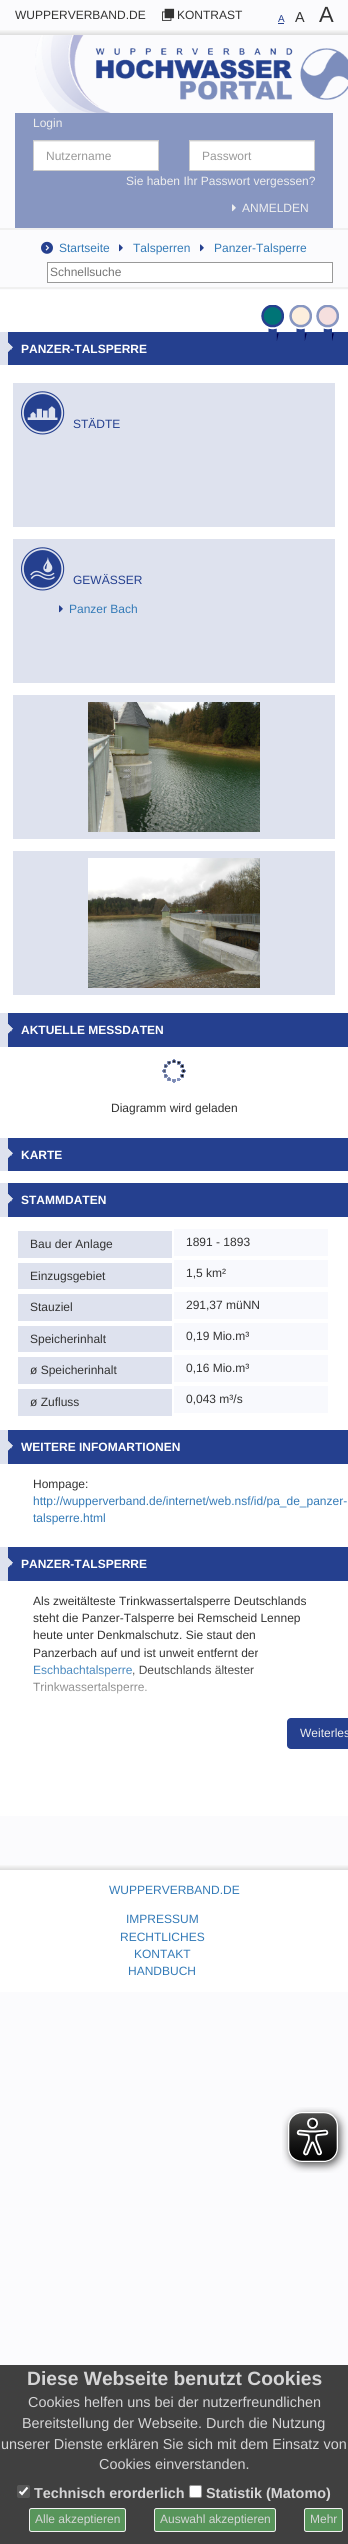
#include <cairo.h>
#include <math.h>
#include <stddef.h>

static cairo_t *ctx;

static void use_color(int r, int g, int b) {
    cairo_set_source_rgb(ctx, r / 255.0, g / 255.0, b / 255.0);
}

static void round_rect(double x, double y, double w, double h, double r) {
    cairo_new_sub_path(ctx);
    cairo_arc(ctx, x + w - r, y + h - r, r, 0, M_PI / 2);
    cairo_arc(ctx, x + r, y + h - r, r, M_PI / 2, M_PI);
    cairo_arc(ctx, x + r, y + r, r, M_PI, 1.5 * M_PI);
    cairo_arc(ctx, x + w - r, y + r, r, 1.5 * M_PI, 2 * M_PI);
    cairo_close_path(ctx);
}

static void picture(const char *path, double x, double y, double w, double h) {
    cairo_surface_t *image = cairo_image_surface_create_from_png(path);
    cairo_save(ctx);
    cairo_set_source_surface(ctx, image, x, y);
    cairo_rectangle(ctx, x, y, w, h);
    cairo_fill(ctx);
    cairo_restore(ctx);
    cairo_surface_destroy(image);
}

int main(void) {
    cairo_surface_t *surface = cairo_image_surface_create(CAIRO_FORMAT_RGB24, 348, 2544);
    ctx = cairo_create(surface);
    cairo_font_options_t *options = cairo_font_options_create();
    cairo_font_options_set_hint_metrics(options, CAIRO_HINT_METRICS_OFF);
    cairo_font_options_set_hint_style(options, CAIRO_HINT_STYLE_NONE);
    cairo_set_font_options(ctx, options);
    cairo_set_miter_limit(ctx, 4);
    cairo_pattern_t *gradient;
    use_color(251, 251, 253);
    cairo_paint(ctx);
    cairo_select_font_face(ctx, "Liberation Sans", CAIRO_FONT_SLANT_NORMAL, CAIRO_FONT_WEIGHT_NORMAL);
    cairo_set_font_size(ctx, 12);
    use_color(51, 51, 51);
    cairo_move_to(ctx, 15, 19);
    cairo_show_text(ctx, "WUPPERVERBAND.DE");
    picture("img1.png", 162, 8, 13, 13);
    cairo_move_to(ctx, 177, 19);
    cairo_show_text(ctx, "KONTRAST");
    cairo_set_font_size(ctx, 10);
    use_color(37, 64, 143);
    cairo_move_to(ctx, 278, 22);
    cairo_show_text(ctx, "A");
    cairo_rectangle(ctx, 278, 23, 6, 1);
    cairo_fill(ctx);
    cairo_set_font_size(ctx, 14.4);
    use_color(51, 51, 51);
    cairo_move_to(ctx, 295, 22);
    cairo_show_text(ctx, "A");
    cairo_set_font_size(ctx, 22);
    cairo_move_to(ctx, 319, 22);
    cairo_show_text(ctx, "A");
    gradient = cairo_pattern_create_linear(174, 29, 174, 35);
    cairo_pattern_add_color_stop_rgba(gradient, 0.1, 0.984, 0.984, 0.984, 1);
    cairo_pattern_add_color_stop_rgba(gradient, 0.92, 0.878, 0.878, 0.878, 1);
    cairo_pattern_add_color_stop_rgba(gradient, 1, 1, 1, 1, 1);
    cairo_set_source(ctx, gradient);
    cairo_pattern_destroy(gradient);
    cairo_rectangle(ctx, 0, 30, 348, 5);
    cairo_fill(ctx);
    picture("img2.png", 35, 35, 313, 78);
    use_color(135, 150, 193);
    cairo_rectangle(ctx, 15, 113, 318, 115);
    cairo_fill(ctx);
    cairo_set_font_size(ctx, 12);
    use_color(238, 238, 238);
    cairo_move_to(ctx, 33, 127);
    cairo_show_text(ctx, "Login");
    use_color(255, 255, 255);
    cairo_rectangle(ctx, 34, 142, 124, 28);
    cairo_fill(ctx);
    use_color(236, 236, 236);
    cairo_rectangle(ctx, 34, 141, 124, 1);
    cairo_fill(ctx);
    cairo_rectangle(ctx, 33.5, 140.5, 125, 30);
    use_color(204, 204, 204);
    cairo_set_line_width(ctx, 1);
    cairo_stroke(ctx);
    use_color(153, 153, 153);
    cairo_move_to(ctx, 46, 160);
    cairo_show_text(ctx, "Nutzername");
    use_color(255, 255, 255);
    cairo_rectangle(ctx, 190, 142, 124, 28);
    cairo_fill(ctx);
    use_color(236, 236, 236);
    cairo_rectangle(ctx, 190, 141, 124, 1);
    cairo_fill(ctx);
    cairo_rectangle(ctx, 189.5, 140.5, 125, 30);
    use_color(204, 204, 204);
    cairo_stroke(ctx);
    use_color(153, 153, 153);
    cairo_move_to(ctx, 202, 160);
    cairo_show_text(ctx, "Passwort");
    use_color(238, 238, 238);
    cairo_move_to(ctx, 126, 185);
    cairo_show_text(ctx, "Sie haben Ihr Passwort vergessen?");
    picture("img3.png", 232, 204, 4, 8);
    cairo_move_to(ctx, 242, 212);
    cairo_show_text(ctx, "ANMELDEN");
    use_color(240, 240, 240);
    cairo_rectangle(ctx, 0, 228, 348, 2);
    cairo_fill(ctx);
    picture("img4.png", 41, 241, 12, 13);
    use_color(51, 122, 183);
    cairo_move_to(ctx, 59, 252);
    cairo_show_text(ctx, "Startseite");
    picture("img5.png", 119, 244, 4, 8);
    cairo_move_to(ctx, 133, 252);
    cairo_show_text(ctx, "Talsperren");
    picture("img5.png", 200, 244, 4, 8);
    cairo_move_to(ctx, 214, 252);
    cairo_show_text(ctx, "Panzer-Talsperre");
    use_color(255, 255, 255);
    cairo_rectangle(ctx, 47.5, 262.5, 285, 20);
    cairo_fill_preserve(ctx);
    use_color(153, 153, 153);
    cairo_stroke(ctx);
    use_color(117, 117, 117);
    cairo_move_to(ctx, 50, 276);
    cairo_show_text(ctx, "Schnellsuche");
    use_color(240, 240, 240);
    cairo_rectangle(ctx, 0, 287, 348, 2);
    cairo_fill(ctx);
    use_color(255, 255, 255);
    cairo_rectangle(ctx, 0, 290, 348, 1526);
    cairo_fill(ctx);
    use_color(37, 64, 143);
    cairo_rectangle(ctx, 8, 332, 340, 33);
    cairo_fill(ctx);
    picture("img6.png", 0, 332, 13, 33);
    picture("img7.png", 261, 305, 23, 36);
    picture("img8.png", 289, 305, 23, 36);
    picture("img9.png", 316, 305, 23, 36);
    cairo_select_font_face(ctx, "Liberation Sans", CAIRO_FONT_SLANT_NORMAL, CAIRO_FONT_WEIGHT_BOLD);
    use_color(255, 255, 255);
    cairo_move_to(ctx, 21, 353);
    cairo_show_text(ctx, "PANZER-TALSPERRE");
    use_color(222, 226, 238);
    cairo_rectangle(ctx, 13, 383, 322, 144);
    cairo_fill(ctx);
    picture("img10.png", 21, 391, 44, 44);
    cairo_select_font_face(ctx, "Liberation Sans", CAIRO_FONT_SLANT_NORMAL, CAIRO_FONT_WEIGHT_NORMAL);
    use_color(37, 64, 143);
    cairo_move_to(ctx, 73, 428);
    cairo_show_text(ctx, "STÄDTE");
    use_color(222, 226, 238);
    cairo_rectangle(ctx, 13, 539, 322, 144);
    cairo_fill(ctx);
    picture("img11.png", 21, 547, 44, 44);
    use_color(37, 64, 143);
    cairo_move_to(ctx, 73, 584);
    cairo_show_text(ctx, "GEWÄSSER");
    picture("img12.png", 59, 605, 4, 8);
    use_color(51, 122, 183);
    cairo_move_to(ctx, 69, 613);
    cairo_show_text(ctx, "Panzer Bach");
    use_color(222, 226, 238);
    cairo_rectangle(ctx, 13, 695, 322, 144);
    cairo_fill(ctx);
    picture("img13.png", 88, 702, 172, 130);
    cairo_rectangle(ctx, 13, 851, 322, 144);
    cairo_fill(ctx);
    picture("img14.png", 88, 858, 172, 130);
    use_color(37, 64, 143);
    cairo_rectangle(ctx, 8, 1013, 340, 34);
    cairo_fill(ctx);
    picture("img15.png", 0, 1013, 13, 34);
    cairo_select_font_face(ctx, "Liberation Sans", CAIRO_FONT_SLANT_NORMAL, CAIRO_FONT_WEIGHT_BOLD);
    use_color(255, 255, 255);
    cairo_move_to(ctx, 21, 1034);
    cairo_show_text(ctx, "AKTUELLE MESSDATEN");
    picture("img16.png", 162, 1059, 24, 24);
    cairo_select_font_face(ctx, "Liberation Sans", CAIRO_FONT_SLANT_NORMAL, CAIRO_FONT_WEIGHT_NORMAL);
    use_color(51, 51, 51);
    cairo_move_to(ctx, 111, 1112);
    cairo_show_text(ctx, "Diagramm wird geladen");
    use_color(37, 64, 143);
    cairo_rectangle(ctx, 8, 1138, 340, 33);
    cairo_fill(ctx);
    picture("img6.png", 0, 1138, 13, 33);
    cairo_select_font_face(ctx, "Liberation Sans", CAIRO_FONT_SLANT_NORMAL, CAIRO_FONT_WEIGHT_BOLD);
    use_color(255, 255, 255);
    cairo_move_to(ctx, 21, 1159);
    cairo_show_text(ctx, "KARTE");
    use_color(37, 64, 143);
    cairo_rectangle(ctx, 8, 1183, 340, 34);
    cairo_fill(ctx);
    picture("img15.png", 0, 1183, 13, 34);
    use_color(255, 255, 255);
    cairo_move_to(ctx, 21, 1204);
    cairo_show_text(ctx, "STAMMDATEN");
    use_color(222, 226, 238);
    cairo_rectangle(ctx, 18, 1231, 154, 27);
    cairo_fill(ctx);
    cairo_select_font_face(ctx, "Liberation Sans", CAIRO_FONT_SLANT_NORMAL, CAIRO_FONT_WEIGHT_NORMAL);
    use_color(51, 51, 51);
    cairo_move_to(ctx, 30, 1248);
    cairo_show_text(ctx, "Bau der Anlage");
    use_color(248, 249, 253);
    cairo_rectangle(ctx, 174, 1229, 154, 27);
    cairo_fill(ctx);
    use_color(51, 51, 51);
    cairo_move_to(ctx, 186, 1246);
    cairo_show_text(ctx, "1891 - 1893");
    use_color(222, 226, 238);
    cairo_rectangle(ctx, 18, 1263, 154, 26);
    cairo_fill(ctx);
    use_color(51, 51, 51);
    cairo_move_to(ctx, 30, 1280);
    cairo_show_text(ctx, "Einzugsgebiet");
    use_color(248, 249, 253);
    cairo_rectangle(ctx, 174, 1260, 154, 27);
    cairo_fill(ctx);
    use_color(51, 51, 51);
    cairo_move_to(ctx, 186, 1277);
    cairo_show_text(ctx, "1,5 km²");
    use_color(222, 226, 238);
    cairo_rectangle(ctx, 18, 1294, 154, 27);
    cairo_fill(ctx);
    use_color(51, 51, 51);
    cairo_move_to(ctx, 30, 1311);
    cairo_show_text(ctx, "Stauziel");
    use_color(248, 249, 253);
    cairo_rectangle(ctx, 174, 1292, 154, 27);
    cairo_fill(ctx);
    use_color(51, 51, 51);
    cairo_move_to(ctx, 186, 1309);
    cairo_show_text(ctx, "291,37 müNN");
    use_color(222, 226, 238);
    cairo_rectangle(ctx, 18, 1326, 154, 26);
    cairo_fill(ctx);
    use_color(51, 51, 51);
    cairo_move_to(ctx, 30, 1343);
    cairo_show_text(ctx, "Speicherinhalt");
    use_color(248, 249, 253);
    cairo_rectangle(ctx, 174, 1323, 154, 27);
    cairo_fill(ctx);
    use_color(51, 51, 51);
    cairo_move_to(ctx, 186, 1340);
    cairo_show_text(ctx, "0,19 Mio.m³");
    use_color(222, 226, 238);
    cairo_rectangle(ctx, 18, 1357, 154, 27);
    cairo_fill(ctx);
    use_color(51, 51, 51);
    cairo_move_to(ctx, 30, 1374);
    cairo_show_text(ctx, "ø Speicherinhalt");
    use_color(248, 249, 253);
    cairo_rectangle(ctx, 174, 1355, 154, 27);
    cairo_fill(ctx);
    use_color(51, 51, 51);
    cairo_move_to(ctx, 186, 1372);
    cairo_show_text(ctx, "0,16 Mio.m³");
    use_color(222, 226, 238);
    cairo_rectangle(ctx, 18, 1389, 154, 27);
    cairo_fill(ctx);
    use_color(51, 51, 51);
    cairo_move_to(ctx, 30, 1406);
    cairo_show_text(ctx, "ø Zufluss");
    use_color(248, 249, 253);
    cairo_rectangle(ctx, 174, 1386, 154, 27);
    cairo_fill(ctx);
    use_color(51, 51, 51);
    cairo_move_to(ctx, 186, 1403);
    cairo_show_text(ctx, "0,043 m³/s");
    use_color(37, 64, 143);
    cairo_rectangle(ctx, 8, 1430, 340, 34);
    cairo_fill(ctx);
    picture("img15.png", 0, 1430, 13, 34);
    cairo_select_font_face(ctx, "Liberation Sans", CAIRO_FONT_SLANT_NORMAL, CAIRO_FONT_WEIGHT_BOLD);
    use_color(255, 255, 255);
    cairo_move_to(ctx, 21, 1451);
    cairo_show_text(ctx, "WEITERE INFOMARTIONEN");
    cairo_select_font_face(ctx, "Liberation Sans", CAIRO_FONT_SLANT_NORMAL, CAIRO_FONT_WEIGHT_NORMAL);
    use_color(51, 51, 51);
    cairo_move_to(ctx, 33, 1488);
    cairo_show_text(ctx, "Hompage:");
    use_color(51, 122, 183);
    cairo_move_to(ctx, 33, 1505);
    cairo_show_text(ctx, "http://wupperverband.de/internet/web.nsf/id/pa_de_panzer-");
    cairo_move_to(ctx, 33, 1522);
    cairo_show_text(ctx, "talsperre.html");
    use_color(37, 64, 143);
    cairo_rectangle(ctx, 8, 1547, 340, 34);
    cairo_fill(ctx);
    picture("img15.png", 0, 1547, 13, 34);
    cairo_select_font_face(ctx, "Liberation Sans", CAIRO_FONT_SLANT_NORMAL, CAIRO_FONT_WEIGHT_BOLD);
    use_color(255, 255, 255);
    cairo_move_to(ctx, 21, 1568);
    cairo_show_text(ctx, "PANZER-TALSPERRE");
    cairo_select_font_face(ctx, "Liberation Sans", CAIRO_FONT_SLANT_NORMAL, CAIRO_FONT_WEIGHT_NORMAL);
    use_color(51, 51, 51);
    cairo_move_to(ctx, 33, 1605);
    cairo_show_text(ctx, "Als zweitälteste Trinkwassertalsperre Deutschlands");
    cairo_move_to(ctx, 33, 1622);
    cairo_show_text(ctx, "steht die Panzer-Talsperre bei Remscheid Lennep");
    cairo_move_to(ctx, 33, 1639);
    cairo_show_text(ctx, "heute unter Denkmalschutz. Sie staut den");
    cairo_move_to(ctx, 33, 1657);
    cairo_show_text(ctx, "Panzerbach auf und ist unweit entfernt der");
    use_color(51, 122, 183);
    cairo_move_to(ctx, 33, 1674);
    cairo_show_text(ctx, "Eschbachtalsperre");
    use_color(51, 51, 51);
    cairo_move_to(ctx, 132, 1674);
    cairo_show_text(ctx, ", Deutschlands ältester");
    cairo_move_to(ctx, 33, 1691);
    cairo_show_text(ctx, "Trinkwassertalsperre.");
    gradient = cairo_pattern_create_linear(174, 1713, 174, 1593);
    cairo_pattern_add_color_stop_rgba(gradient, 0, 1, 1, 1, 1);
    cairo_pattern_add_color_stop_rgba(gradient, 0.4, 1, 1, 1, 0);
    cairo_set_source(ctx, gradient);
    cairo_pattern_destroy(gradient);
    cairo_rectangle(ctx, 33, 1666, 221, 28);
    cairo_fill(ctx);
    use_color(37, 64, 143);
    round_rect(287, 1718, 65, 31, 4);
    cairo_fill(ctx);
    use_color(238, 238, 238);
    cairo_move_to(ctx, 300, 1737);
    cairo_show_text(ctx, "Weiterles");
    use_color(255, 255, 255);
    cairo_rectangle(ctx, 0, 1870, 348, 122);
    cairo_fill(ctx);
    gradient = cairo_pattern_create_linear(174, 1864, 174, 1870);
    cairo_pattern_add_color_stop_rgba(gradient, 0.1, 0.984, 0.984, 0.984, 1);
    cairo_pattern_add_color_stop_rgba(gradient, 0.92, 0.878, 0.878, 0.878, 1);
    cairo_pattern_add_color_stop_rgba(gradient, 1, 1, 1, 1, 1);
    cairo_set_source(ctx, gradient);
    cairo_pattern_destroy(gradient);
    cairo_rectangle(ctx, 0, 1865, 348, 5);
    cairo_fill(ctx);
    use_color(51, 122, 183);
    cairo_move_to(ctx, 109, 1894);
    cairo_show_text(ctx, "WUPPERVERBAND.DE");
    cairo_move_to(ctx, 126, 1923);
    cairo_show_text(ctx, "IMPRESSUM");
    cairo_move_to(ctx, 120, 1941);
    cairo_show_text(ctx, "RECHTLICHES");
    cairo_move_to(ctx, 134, 1958);
    cairo_show_text(ctx, "KONTAKT");
    cairo_move_to(ctx, 128, 1975);
    cairo_show_text(ctx, "HANDBUCH");
    picture("img17.png", 282, 2107, 66, 66);
    use_color(64, 64, 64);
    cairo_rectangle(ctx, 0, 2365, 348, 179);
    cairo_fill(ctx);
    cairo_select_font_face(ctx, "Liberation Sans", CAIRO_FONT_SLANT_NORMAL, CAIRO_FONT_WEIGHT_BOLD);
    cairo_set_font_size(ctx, 19.25);
    use_color(213, 213, 214);
    cairo_move_to(ctx, 27, 2385);
    cairo_show_text(ctx, "Diese Webseite benutzt Cookies");
    cairo_select_font_face(ctx, "Liberation Sans", CAIRO_FONT_SLANT_NORMAL, CAIRO_FONT_WEIGHT_NORMAL);
    cairo_set_font_size(ctx, 14.4);
    cairo_move_to(ctx, 28, 2407);
    cairo_show_text(ctx, "Cookies helfen uns bei der nutzerfreundlichen");
    cairo_move_to(ctx, 22, 2428);
    cairo_show_text(ctx, "Bereitstellung der Webseite. Durch die Nutzung");
    cairo_move_to(ctx, 1, 2449);
    cairo_show_text(ctx, "unserer Dienste erklären Sie sich mit dem Einsatz von");
    cairo_move_to(ctx, 99, 2469);
    cairo_show_text(ctx, "Cookies einverstanden.");
    use_color(88, 88, 88);
    round_rect(17, 2485, 13, 13, 2);
    cairo_fill(ctx);
    cairo_new_path(ctx);
    cairo_move_to(ctx, 19.5, 2491.5);
    cairo_line_to(ctx, 22, 2494);
    cairo_line_to(ctx, 27.5, 2487.5);
    use_color(254, 254, 255);
    cairo_set_line_width(ctx, 2.1);
    cairo_stroke(ctx);
    cairo_select_font_face(ctx, "Liberation Sans", CAIRO_FONT_SLANT_NORMAL, CAIRO_FONT_WEIGHT_BOLD);
    use_color(213, 213, 214);
    cairo_move_to(ctx, 34, 2498);
    cairo_show_text(ctx, "Technisch erorderlich");
    use_color(254, 254, 255);
    round_rect(189.5, 2485.5, 12, 12, 1.5);
    cairo_fill_preserve(ctx);
    use_color(145, 145, 145);
    cairo_set_line_width(ctx, 1);
    cairo_stroke(ctx);
    use_color(213, 213, 214);
    cairo_move_to(ctx, 206, 2498);
    cairo_show_text(ctx, "Statistik (Matomo)");
    use_color(88, 149, 91);
    round_rect(29.5, 2508.5, 96, 23, 2);
    cairo_fill_preserve(ctx);
    use_color(241, 241, 241);
    cairo_stroke(ctx);
    cairo_select_font_face(ctx, "Liberation Sans", CAIRO_FONT_SLANT_NORMAL, CAIRO_FONT_WEIGHT_NORMAL);
    cairo_set_font_size(ctx, 12);
    use_color(213, 213, 214);
    cairo_move_to(ctx, 35, 2523);
    cairo_show_text(ctx, "Alle akzeptieren");
    use_color(88, 149, 91);
    round_rect(154.5, 2508.5, 121, 23, 2);
    cairo_fill_preserve(ctx);
    use_color(241, 241, 241);
    cairo_stroke(ctx);
    use_color(213, 213, 214);
    cairo_move_to(ctx, 160, 2523);
    cairo_show_text(ctx, "Auswahl akzeptieren");
    use_color(88, 149, 91);
    round_rect(304.5, 2508.5, 38, 23, 2);
    cairo_fill_preserve(ctx);
    use_color(241, 241, 241);
    cairo_stroke(ctx);
    use_color(213, 213, 214);
    cairo_move_to(ctx, 310, 2523);
    cairo_show_text(ctx, "Mehr");
    cairo_surface_write_to_png(surface, "result.png");
    cairo_font_options_destroy(options);
    cairo_destroy(ctx);
    cairo_surface_destroy(surface);
    return 0;
}
